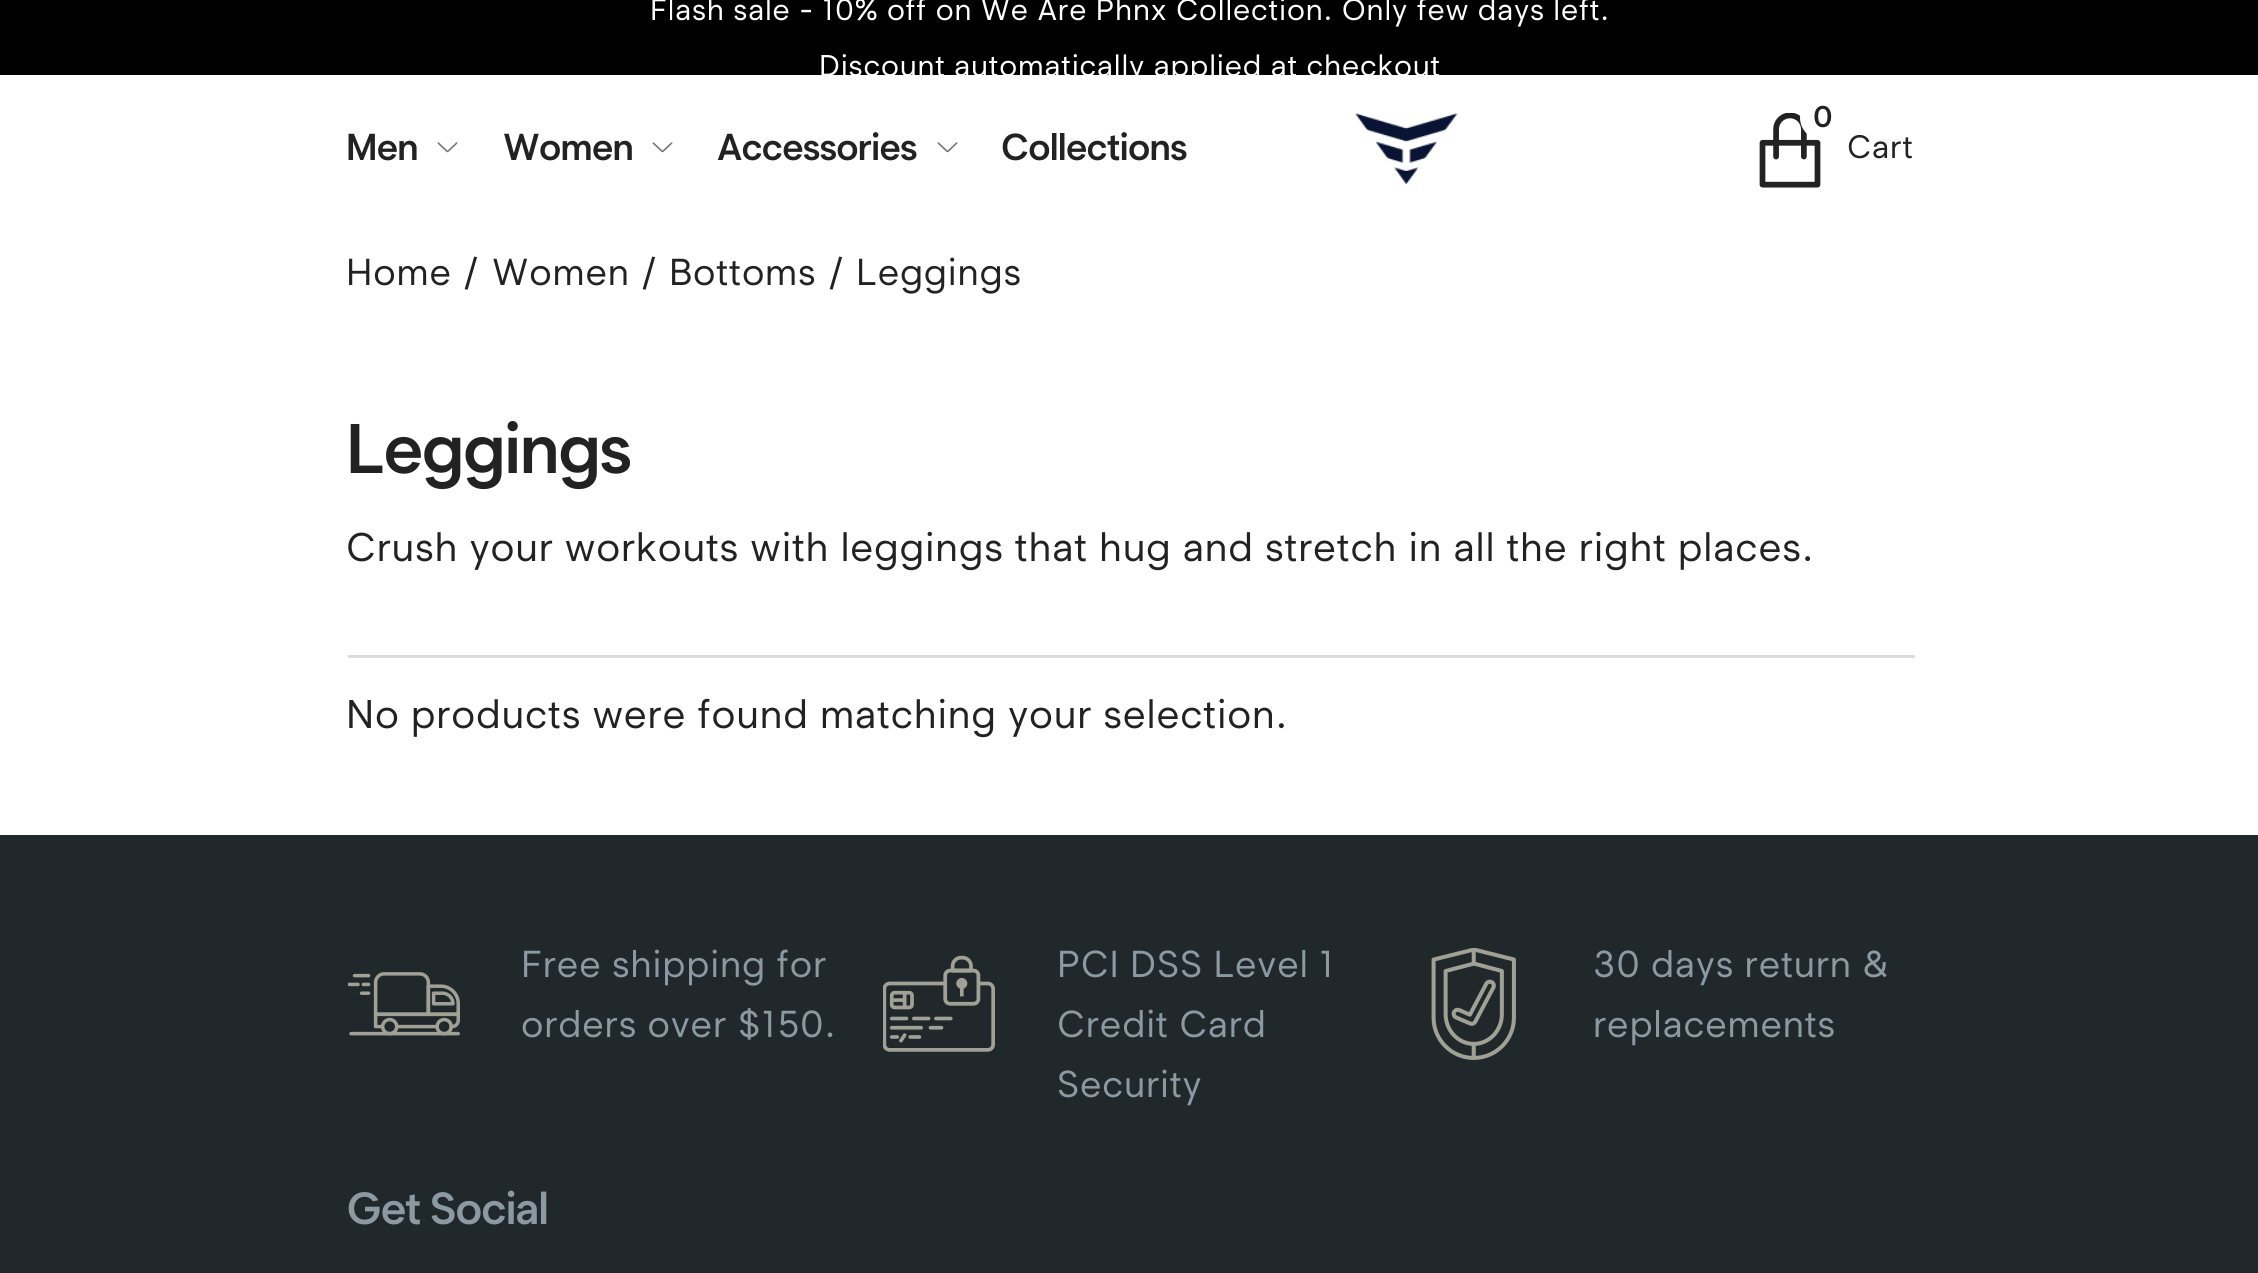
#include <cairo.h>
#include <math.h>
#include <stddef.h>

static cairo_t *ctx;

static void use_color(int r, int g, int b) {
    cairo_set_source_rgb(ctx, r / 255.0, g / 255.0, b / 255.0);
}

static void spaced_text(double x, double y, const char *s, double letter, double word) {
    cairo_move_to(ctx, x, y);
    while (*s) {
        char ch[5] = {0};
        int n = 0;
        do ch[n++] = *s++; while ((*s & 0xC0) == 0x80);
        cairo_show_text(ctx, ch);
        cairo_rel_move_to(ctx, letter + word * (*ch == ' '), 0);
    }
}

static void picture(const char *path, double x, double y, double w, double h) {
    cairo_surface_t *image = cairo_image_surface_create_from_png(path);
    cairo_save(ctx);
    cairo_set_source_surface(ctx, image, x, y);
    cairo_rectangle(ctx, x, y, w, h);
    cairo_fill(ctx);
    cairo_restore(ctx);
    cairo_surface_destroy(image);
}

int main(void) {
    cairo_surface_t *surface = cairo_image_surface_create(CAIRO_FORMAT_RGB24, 2258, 1273);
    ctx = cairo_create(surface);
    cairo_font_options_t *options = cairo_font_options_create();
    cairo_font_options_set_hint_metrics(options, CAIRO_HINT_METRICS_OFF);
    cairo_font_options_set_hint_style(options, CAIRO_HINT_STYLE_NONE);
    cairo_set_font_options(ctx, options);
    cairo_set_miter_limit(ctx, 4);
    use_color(255, 255, 255);
    cairo_paint(ctx);
    use_color(0, 0, 0);
    cairo_rectangle(ctx, 0, 0, 2258, 75);
    cairo_fill(ctx);
    cairo_select_font_face(ctx, "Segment", CAIRO_FONT_SLANT_NORMAL, CAIRO_FONT_WEIGHT_NORMAL);
    cairo_set_font_size(ctx, 30);
    use_color(255, 255, 255);
    spaced_text(650, 20, "Flash sale - 10% off on We Are Phnx Collection. Only few days left.", 0.8, 0);
    spaced_text(819, 76, "Discount automatically applied at checkout", 0.8, 0);
    cairo_select_font_face(ctx, "Segment SemiBold", CAIRO_FONT_SLANT_NORMAL, CAIRO_FONT_WEIGHT_NORMAL);
    cairo_set_font_size(ctx, 37.5);
    use_color(34, 34, 34);
    spaced_text(346, 160, "Men", -0.75, 0);
    picture("img1.png", 437, 142, 21, 11);
    spaced_text(503, 160, "Women", -0.75, 0);
    picture("img1.png", 652, 142, 21, 11);
    spaced_text(717, 160, "Accessories", -0.75, 0);
    picture("img1.png", 937, 142, 21, 11);
    spaced_text(1001, 160, "Collections", -0.75, 0);
    picture("img2.png", 1355, 113, 103, 72);
    picture("img3.png", 1759, 113, 62, 75);
    use_color(255, 255, 255);
    cairo_arc(ctx, 1822.5, 117.5, 22.5, 0, 2 * M_PI);
    cairo_fill(ctx);
    cairo_set_font_size(ctx, 30);
    use_color(34, 34, 34);
    spaced_text(1813, 127, "0", -1, 0);
    cairo_select_font_face(ctx, "Segment", CAIRO_FONT_SLANT_NORMAL, CAIRO_FONT_WEIGHT_NORMAL);
    cairo_set_font_size(ctx, 32.5);
    spaced_text(1847, 158, "Cart", 0.8, 0);
    cairo_set_font_size(ctx, 37.5);
    spaced_text(346, 285, "Home", 0.8, 0);
    spaced_text(464, 285, "/", 0.8, 0);
    spaced_text(492, 285, "Women", 0.8, 0);
    spaced_text(642, 285, "/", 0.8, 0);
    spaced_text(669, 285, "Bottoms", 0.8, 0);
    spaced_text(829, 285, "/", 0.8, 0);
    spaced_text(856, 285, "Leggings", 0.8, 0);
    cairo_select_font_face(ctx, "Segment SemiBold", CAIRO_FONT_SLANT_NORMAL, CAIRO_FONT_WEIGHT_NORMAL);
    cairo_set_font_size(ctx, 70);
    spaced_text(346, 473, "Leggings", -1.5, 0);
    use_color(221, 221, 221);
    cairo_rectangle(ctx, 348, 655, 1567, 3);
    cairo_fill(ctx);
    cairo_select_font_face(ctx, "Segment", CAIRO_FONT_SLANT_NORMAL, CAIRO_FONT_WEIGHT_NORMAL);
    cairo_set_font_size(ctx, 40);
    use_color(34, 34, 34);
    spaced_text(346, 561, "Crush your workouts with leggings that hug and stretch in all the right places.", 0.8, 0);
    spaced_text(346, 728, "No products were found matching your selection.", 0.8, 0);
    use_color(32, 40, 44);
    cairo_rectangle(ctx, 0, 835, 2258, 438);
    cairo_fill(ctx);
    picture("img4.png", 348, 972, 112, 64);
    cairo_set_font_size(ctx, 37.5);
    use_color(139, 153, 163);
    spaced_text(521, 977, "Free shipping for", 0.8, 0);
    spaced_text(521, 1037, "orders over $150.", 0.8, 0);
    picture("img5.png", 883, 955, 112, 97);
    spaced_text(1057, 977, "PCI DSS Level 1", 0.8, 0);
    spaced_text(1057, 1037, "Credit Card", 0.8, 0);
    spaced_text(1057, 1097, "Security", 0.8, 0);
    picture("img6.png", 1431, 948, 85, 112);
    spaced_text(1593, 977, "30 days return &", 0.8, 0);
    spaced_text(1593, 1037, "replacements", 0.8, 0);
    cairo_select_font_face(ctx, "Segment SemiBold", CAIRO_FONT_SLANT_NORMAL, CAIRO_FONT_WEIGHT_NORMAL);
    cairo_set_font_size(ctx, 45);
    spaced_text(346, 1224, "Get Social", -1, 0);
    cairo_surface_write_to_png(surface, "result.png");
    cairo_font_options_destroy(options);
    cairo_destroy(ctx);
    cairo_surface_destroy(surface);
    return 0;
}
